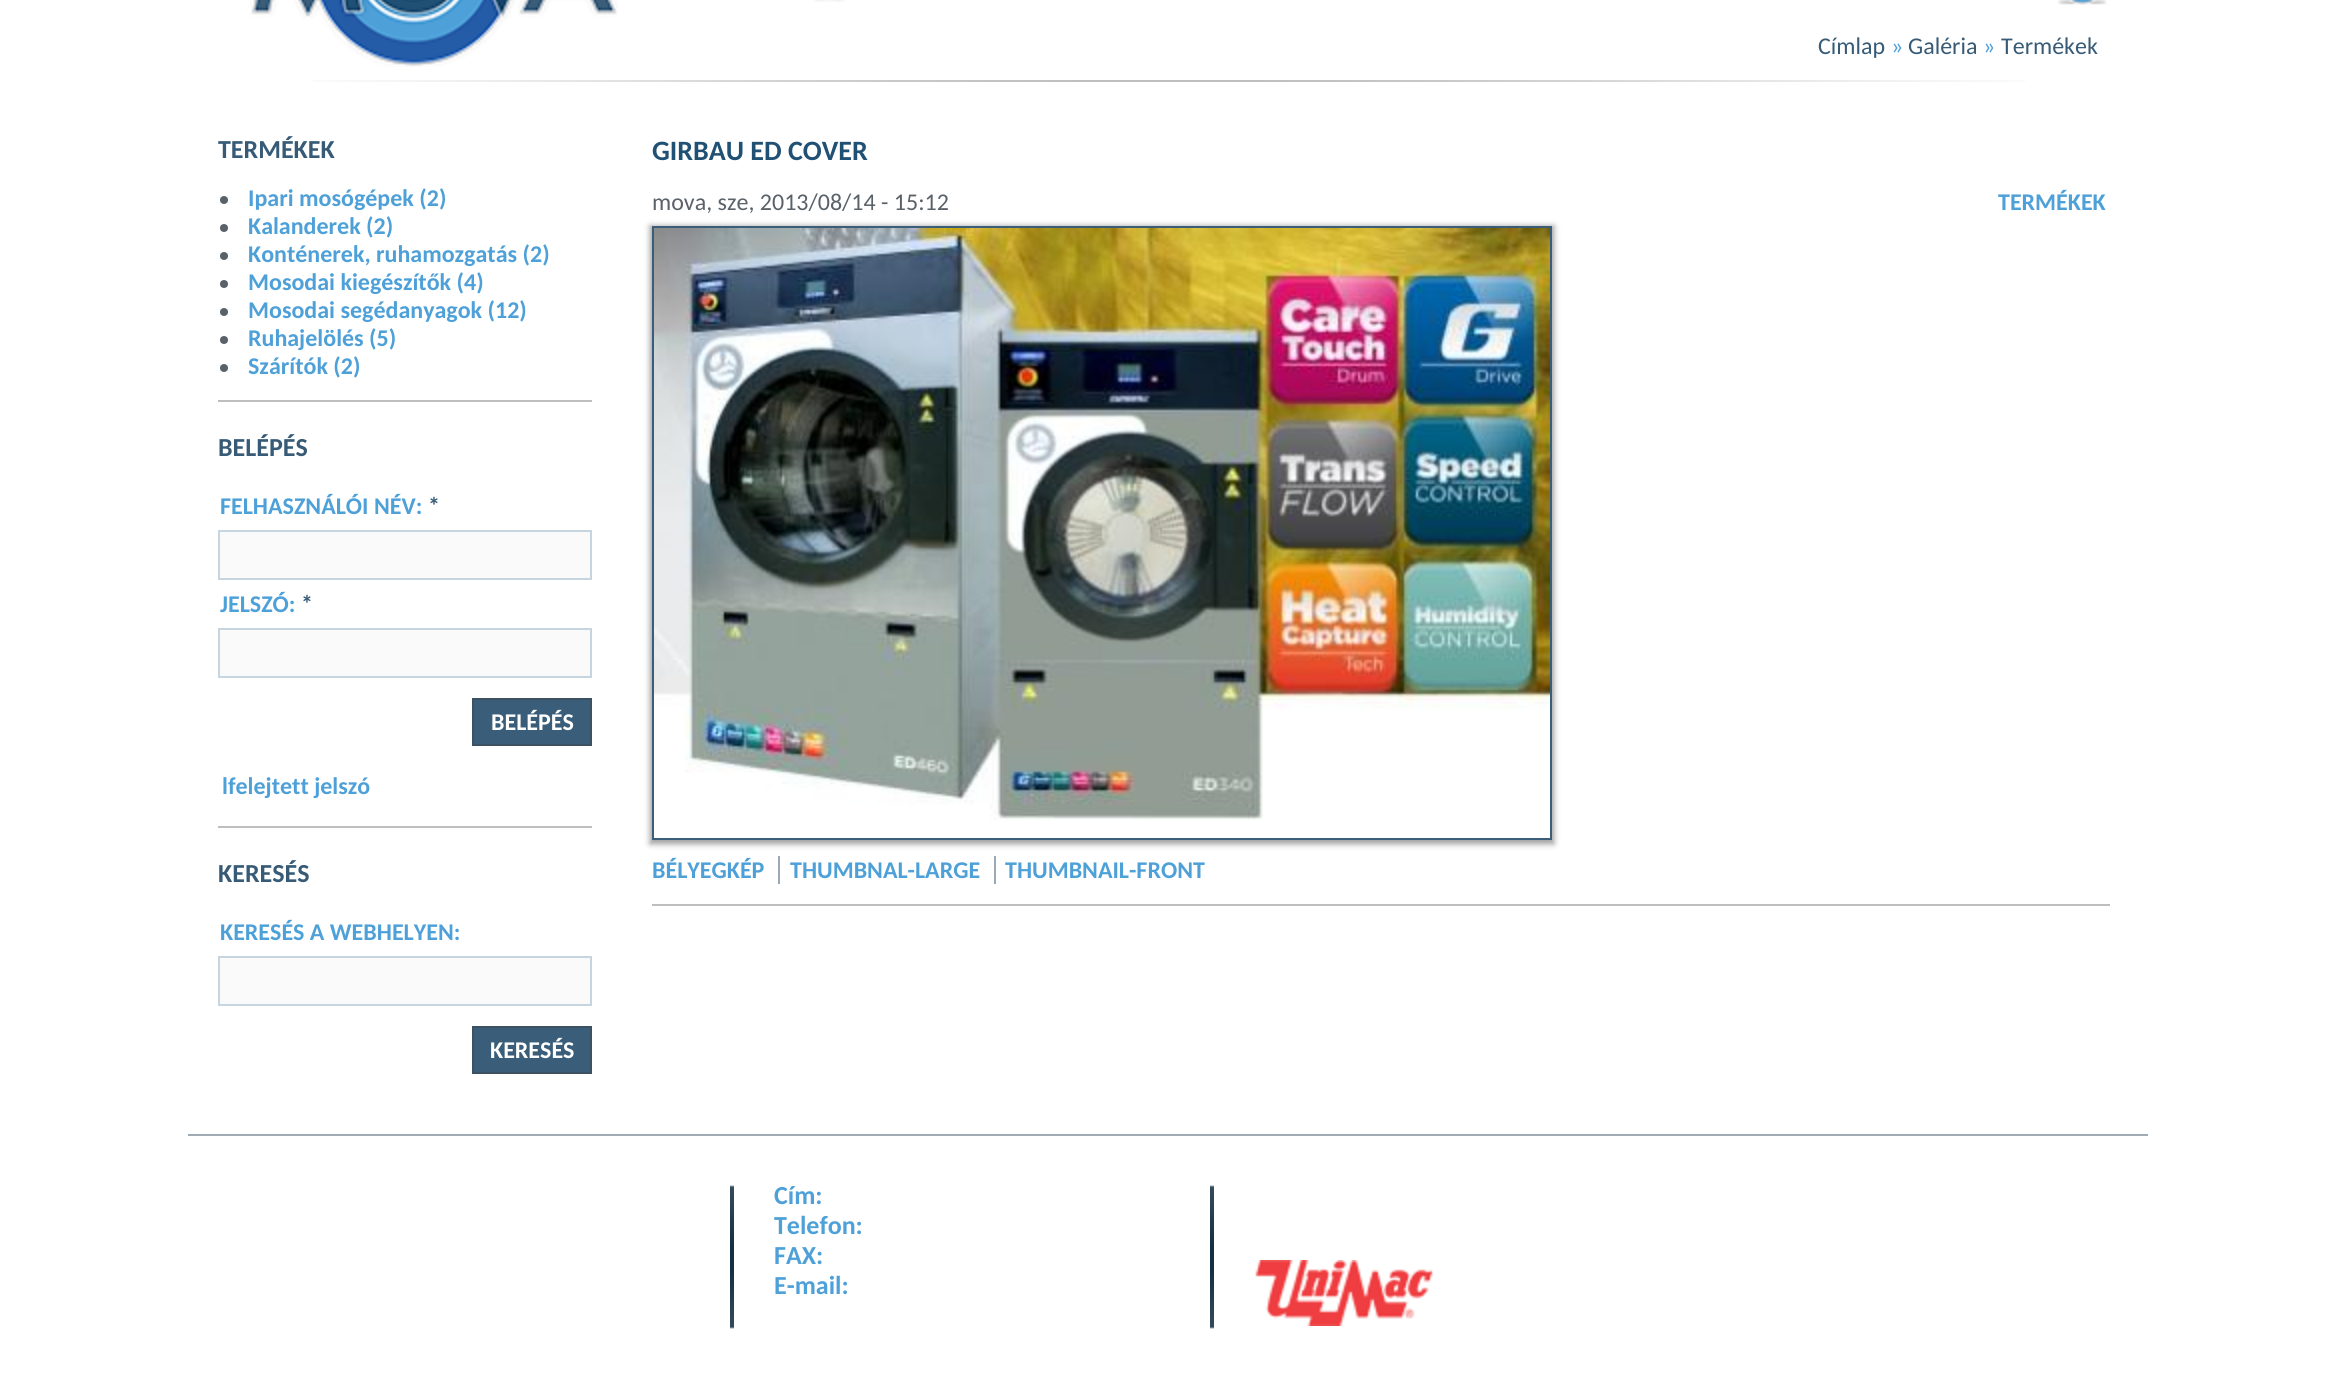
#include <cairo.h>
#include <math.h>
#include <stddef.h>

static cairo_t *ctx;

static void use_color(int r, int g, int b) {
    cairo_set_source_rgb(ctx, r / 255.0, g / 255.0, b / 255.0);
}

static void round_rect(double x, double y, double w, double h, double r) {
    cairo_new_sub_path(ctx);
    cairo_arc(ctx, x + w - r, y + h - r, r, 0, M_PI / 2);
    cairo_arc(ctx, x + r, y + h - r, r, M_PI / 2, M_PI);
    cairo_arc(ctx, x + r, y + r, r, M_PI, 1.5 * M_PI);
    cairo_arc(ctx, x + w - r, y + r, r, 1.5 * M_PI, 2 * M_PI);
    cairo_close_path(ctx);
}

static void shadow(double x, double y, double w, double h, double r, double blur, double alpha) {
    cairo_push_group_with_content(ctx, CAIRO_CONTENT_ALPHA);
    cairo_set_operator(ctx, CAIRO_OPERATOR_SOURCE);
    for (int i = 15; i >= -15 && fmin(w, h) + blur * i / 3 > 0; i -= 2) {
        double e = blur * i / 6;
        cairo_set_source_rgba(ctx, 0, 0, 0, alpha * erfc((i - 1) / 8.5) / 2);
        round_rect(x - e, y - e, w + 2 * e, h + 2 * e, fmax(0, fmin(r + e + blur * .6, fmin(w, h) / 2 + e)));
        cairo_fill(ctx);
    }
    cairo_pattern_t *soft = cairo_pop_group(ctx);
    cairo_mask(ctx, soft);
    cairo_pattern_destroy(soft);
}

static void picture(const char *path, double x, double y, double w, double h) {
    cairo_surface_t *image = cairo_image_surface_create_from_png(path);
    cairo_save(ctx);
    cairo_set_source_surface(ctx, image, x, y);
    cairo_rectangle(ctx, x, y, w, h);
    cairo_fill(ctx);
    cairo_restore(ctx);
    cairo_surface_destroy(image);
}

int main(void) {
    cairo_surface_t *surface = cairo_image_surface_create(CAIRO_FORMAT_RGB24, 2336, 1392);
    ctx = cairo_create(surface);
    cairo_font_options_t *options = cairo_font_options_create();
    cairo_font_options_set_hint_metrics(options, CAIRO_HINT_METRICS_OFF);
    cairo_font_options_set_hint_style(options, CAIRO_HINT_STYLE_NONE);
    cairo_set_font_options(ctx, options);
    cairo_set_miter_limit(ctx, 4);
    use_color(255, 255, 255);
    cairo_paint(ctx);
    picture("img1.png", 250, 0, 368, 67);
    picture("img2.png", 814, 0, 31, 2);
    picture("img3.png", 2058, 0, 49, 5);
    cairo_select_font_face(ctx, "Carlito", CAIRO_FONT_SLANT_NORMAL, CAIRO_FONT_WEIGHT_NORMAL);
    cairo_set_font_size(ctx, 24);
    use_color(55, 91, 119);
    cairo_move_to(ctx, 1818, 54);
    cairo_show_text(ctx, "Címlap");
    use_color(78, 160, 216);
    cairo_move_to(ctx, 1891, 54);
    cairo_show_text(ctx, "»");
    use_color(55, 91, 119);
    cairo_move_to(ctx, 1908, 54);
    cairo_show_text(ctx, "Galéria");
    use_color(78, 160, 216);
    cairo_move_to(ctx, 1983, 54);
    cairo_show_text(ctx, "»");
    use_color(55, 91, 119);
    cairo_move_to(ctx, 2001, 54);
    cairo_show_text(ctx, "Termékek");
    picture("img4.png", 313, 80, 1712, 2);
    use_color(190, 190, 190);
    cairo_rectangle(ctx, 218, 400, 374, 2);
    cairo_fill(ctx);
    cairo_select_font_face(ctx, "Carlito", CAIRO_FONT_SLANT_NORMAL, CAIRO_FONT_WEIGHT_BOLD);
    cairo_set_font_size(ctx, 26);
    use_color(55, 91, 119);
    cairo_move_to(ctx, 218, 158);
    cairo_show_text(ctx, "TERMÉKEK");
    use_color(89, 97, 105);
    cairo_new_path(ctx);
    cairo_arc(ctx, 224, 200, 4, 0, 2 * M_PI);
    cairo_fill(ctx);
    cairo_set_font_size(ctx, 24);
    use_color(78, 160, 216);
    cairo_move_to(ctx, 248, 206);
    cairo_show_text(ctx, "Ipari mosógépek (2)");
    use_color(89, 97, 105);
    cairo_new_path(ctx);
    cairo_arc(ctx, 224, 228, 4, 0, 2 * M_PI);
    cairo_fill(ctx);
    use_color(78, 160, 216);
    cairo_move_to(ctx, 248, 234);
    cairo_show_text(ctx, "Kalanderek (2)");
    use_color(89, 97, 105);
    cairo_new_path(ctx);
    cairo_arc(ctx, 224, 256, 4, 0, 2 * M_PI);
    cairo_fill(ctx);
    use_color(78, 160, 216);
    cairo_move_to(ctx, 248, 262);
    cairo_show_text(ctx, "Konténerek, ruhamozgatás (2)");
    use_color(89, 97, 105);
    cairo_new_path(ctx);
    cairo_arc(ctx, 224, 284, 4, 0, 2 * M_PI);
    cairo_fill(ctx);
    use_color(78, 160, 216);
    cairo_move_to(ctx, 248, 290);
    cairo_show_text(ctx, "Mosodai kiegészítők (4)");
    use_color(89, 97, 105);
    cairo_new_path(ctx);
    cairo_arc(ctx, 224, 312, 4, 0, 2 * M_PI);
    cairo_fill(ctx);
    use_color(78, 160, 216);
    cairo_move_to(ctx, 248, 318);
    cairo_show_text(ctx, "Mosodai segédanyagok (12)");
    use_color(89, 97, 105);
    cairo_new_path(ctx);
    cairo_arc(ctx, 224, 340, 4, 0, 2 * M_PI);
    cairo_fill(ctx);
    use_color(78, 160, 216);
    cairo_move_to(ctx, 248, 346);
    cairo_show_text(ctx, "Ruhajelölés (5)");
    use_color(89, 97, 105);
    cairo_new_path(ctx);
    cairo_arc(ctx, 224, 368, 4, 0, 2 * M_PI);
    cairo_fill(ctx);
    use_color(78, 160, 216);
    cairo_move_to(ctx, 248, 374);
    cairo_show_text(ctx, "Szárítók (2)");
    use_color(190, 190, 190);
    cairo_rectangle(ctx, 218, 826, 374, 2);
    cairo_fill(ctx);
    cairo_set_font_size(ctx, 26);
    use_color(55, 91, 119);
    cairo_move_to(ctx, 218, 456);
    cairo_show_text(ctx, "BELÉPÉS");
    cairo_set_font_size(ctx, 24);
    use_color(78, 160, 216);
    cairo_move_to(ctx, 220, 514);
    cairo_show_text(ctx, "FELHASZNÁLÓI NÉV:");
    use_color(55, 91, 119);
    cairo_move_to(ctx, 428, 514);
    cairo_show_text(ctx, "*");
    use_color(250, 250, 250);
    cairo_rectangle(ctx, 219, 531, 372, 48);
    cairo_fill_preserve(ctx);
    use_color(198, 213, 223);
    cairo_stroke(ctx);
    use_color(78, 160, 216);
    cairo_move_to(ctx, 220, 612);
    cairo_show_text(ctx, "JELSZÓ:");
    use_color(55, 91, 119);
    cairo_move_to(ctx, 301, 612);
    cairo_show_text(ctx, "*");
    use_color(250, 250, 250);
    cairo_rectangle(ctx, 219, 629, 372, 48);
    cairo_fill_preserve(ctx);
    use_color(198, 213, 223);
    cairo_stroke(ctx);
    use_color(58, 94, 121);
    cairo_rectangle(ctx, 473, 699, 118, 46);
    cairo_fill_preserve(ctx);
    use_color(60, 81, 98);
    cairo_stroke(ctx);
    use_color(255, 255, 255);
    cairo_move_to(ctx, 491, 730);
    cairo_show_text(ctx, "BELÉPÉS");
    use_color(78, 160, 216);
    cairo_move_to(ctx, 222, 794);
    cairo_show_text(ctx, "lfelejtett jelszó");
    cairo_set_font_size(ctx, 26);
    use_color(55, 91, 119);
    cairo_move_to(ctx, 218, 882);
    cairo_show_text(ctx, "KERESÉS");
    cairo_set_font_size(ctx, 24);
    use_color(78, 160, 216);
    cairo_move_to(ctx, 220, 940);
    cairo_show_text(ctx, "KERESÉS A WEBHELYEN:");
    use_color(250, 250, 250);
    cairo_rectangle(ctx, 219, 957, 372, 48);
    cairo_fill_preserve(ctx);
    use_color(198, 213, 223);
    cairo_stroke(ctx);
    use_color(58, 94, 121);
    cairo_rectangle(ctx, 473, 1027, 118, 46);
    cairo_fill_preserve(ctx);
    use_color(60, 81, 98);
    cairo_stroke(ctx);
    use_color(255, 255, 255);
    cairo_move_to(ctx, 490, 1058);
    cairo_show_text(ctx, "KERESÉS");
    cairo_set_font_size(ctx, 28);
    use_color(32, 80, 116);
    cairo_move_to(ctx, 652, 160);
    cairo_show_text(ctx, "GIRBAU ED COVER");
    use_color(190, 190, 190);
    cairo_rectangle(ctx, 652, 904, 1458, 2);
    cairo_fill(ctx);
    cairo_select_font_face(ctx, "Carlito", CAIRO_FONT_SLANT_NORMAL, CAIRO_FONT_WEIGHT_NORMAL);
    cairo_set_font_size(ctx, 24);
    use_color(89, 97, 105);
    cairo_move_to(ctx, 652, 210);
    cairo_show_text(ctx, "mova, sze, 2013/08/14 - 15:12");
    cairo_select_font_face(ctx, "Carlito", CAIRO_FONT_SLANT_NORMAL, CAIRO_FONT_WEIGHT_BOLD);
    use_color(78, 160, 216);
    cairo_move_to(ctx, 1998, 210);
    cairo_show_text(ctx, "TERMÉKEK");
    cairo_save(ctx);
    cairo_set_fill_rule(ctx, CAIRO_FILL_RULE_EVEN_ODD);
    cairo_new_path(ctx);
    cairo_move_to(ctx, 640, 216);
    cairo_line_to(ctx, 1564, 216);
    cairo_line_to(ctx, 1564, 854);
    cairo_line_to(ctx, 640, 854);
    cairo_close_path(ctx);
    cairo_move_to(ctx, 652, 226);
    cairo_line_to(ctx, 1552, 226);
    cairo_line_to(ctx, 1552, 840);
    cairo_line_to(ctx, 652, 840);
    cairo_close_path(ctx);
    cairo_clip(ctx);
    use_color(158, 158, 158);
    shadow(650, 226, 904, 618, 0, 3, 1);
    cairo_restore(ctx);
    cairo_rectangle(ctx, 653, 227, 898, 612);
    use_color(58, 94, 121);
    cairo_stroke(ctx);
    picture("img5.png", 654, 228, 896, 593);
    use_color(78, 160, 216);
    cairo_move_to(ctx, 652, 878);
    cairo_show_text(ctx, "BÉLYEGKÉP");
    cairo_move_to(ctx, 790, 878);
    cairo_show_text(ctx, "THUMBNAL-LARGE");
    use_color(155, 169, 182);
    cairo_rectangle(ctx, 778, 856, 2, 28);
    cairo_fill(ctx);
    use_color(78, 160, 216);
    cairo_move_to(ctx, 1005, 878);
    cairo_show_text(ctx, "THUMBNAIL-FRONT");
    use_color(155, 169, 182);
    cairo_rectangle(ctx, 994, 856, 2, 28);
    cairo_fill(ctx);
    use_color(160, 172, 180);
    cairo_rectangle(ctx, 188, 1134, 1960, 2);
    cairo_fill(ctx);
    picture("img6.png", 730, 1185, 4, 144);
    cairo_set_font_size(ctx, 26);
    use_color(78, 160, 216);
    cairo_move_to(ctx, 774, 1204);
    cairo_show_text(ctx, "Cím:");
    cairo_move_to(ctx, 774, 1234);
    cairo_show_text(ctx, "Telefon:");
    cairo_move_to(ctx, 774, 1264);
    cairo_show_text(ctx, "FAX:");
    cairo_move_to(ctx, 774, 1294);
    cairo_show_text(ctx, "E-mail:");
    picture("img6.png", 1210, 1185, 4, 144);
    picture("img7.png", 1255, 1260, 178, 66);
    cairo_surface_write_to_png(surface, "result.png");
    cairo_font_options_destroy(options);
    cairo_destroy(ctx);
    cairo_surface_destroy(surface);
    return 0;
}
